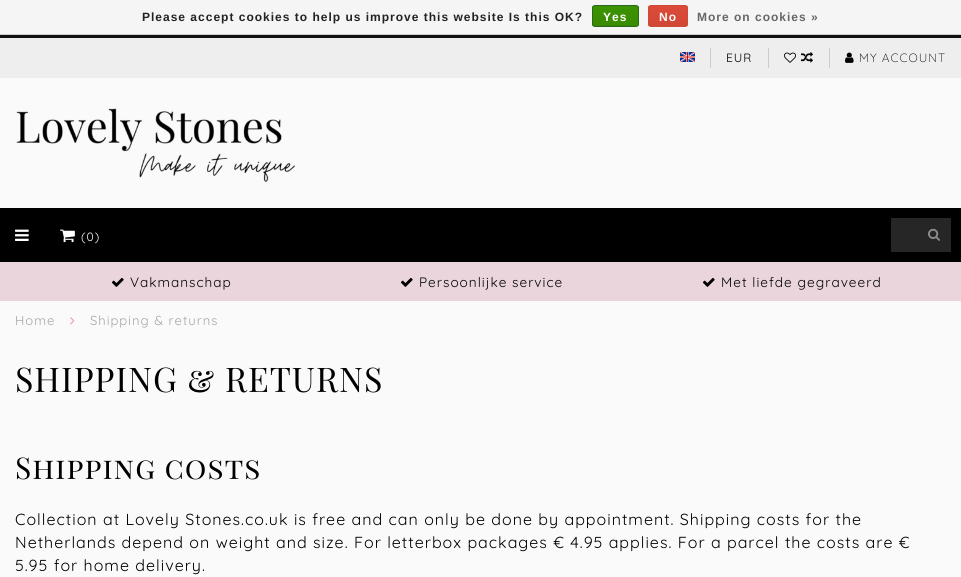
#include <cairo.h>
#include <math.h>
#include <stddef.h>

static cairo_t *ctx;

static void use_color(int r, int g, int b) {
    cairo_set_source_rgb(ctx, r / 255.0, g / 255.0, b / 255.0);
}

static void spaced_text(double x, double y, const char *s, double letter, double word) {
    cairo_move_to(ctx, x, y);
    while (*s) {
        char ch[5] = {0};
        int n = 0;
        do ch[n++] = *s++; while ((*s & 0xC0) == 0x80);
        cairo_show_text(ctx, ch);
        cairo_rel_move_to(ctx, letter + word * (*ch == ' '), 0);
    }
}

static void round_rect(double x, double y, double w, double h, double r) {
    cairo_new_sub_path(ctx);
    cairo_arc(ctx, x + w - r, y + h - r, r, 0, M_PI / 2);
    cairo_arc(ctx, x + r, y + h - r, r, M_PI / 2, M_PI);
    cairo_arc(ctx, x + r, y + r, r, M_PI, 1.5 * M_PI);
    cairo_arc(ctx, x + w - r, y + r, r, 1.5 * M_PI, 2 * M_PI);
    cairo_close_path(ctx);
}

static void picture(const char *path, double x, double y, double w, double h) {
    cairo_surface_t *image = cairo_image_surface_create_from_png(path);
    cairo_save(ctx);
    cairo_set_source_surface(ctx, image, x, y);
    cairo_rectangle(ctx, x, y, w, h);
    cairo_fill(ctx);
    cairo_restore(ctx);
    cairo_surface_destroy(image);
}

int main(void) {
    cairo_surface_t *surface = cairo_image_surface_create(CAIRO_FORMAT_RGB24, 961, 577);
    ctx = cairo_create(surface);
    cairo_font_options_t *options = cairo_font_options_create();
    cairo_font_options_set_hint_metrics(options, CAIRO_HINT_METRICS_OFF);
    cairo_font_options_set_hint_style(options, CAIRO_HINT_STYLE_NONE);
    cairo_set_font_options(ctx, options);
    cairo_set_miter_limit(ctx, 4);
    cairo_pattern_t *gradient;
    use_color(250, 250, 250);
    cairo_paint(ctx);
    use_color(245, 245, 245);
    cairo_rectangle(ctx, 0, 0, 961, 34);
    cairo_fill(ctx);
    use_color(204, 204, 204);
    cairo_rectangle(ctx, 0, 34, 961, 1);
    cairo_fill(ctx);
    cairo_select_font_face(ctx, "Liberation Sans", CAIRO_FONT_SLANT_NORMAL, CAIRO_FONT_WEIGHT_BOLD);
    cairo_set_font_size(ctx, 12);
    use_color(34, 34, 34);
    spaced_text(142, 21, "Please accept cookies to help us improve this website Is this OK?", 1, 0);
    cairo_save(ctx);
    round_rect(592, 5, 47, 22, 3);
    cairo_clip(ctx);
    gradient = cairo_pattern_create_linear(616, 6, 616, 26);
    cairo_pattern_add_color_stop_rgba(gradient, 0, 0.235, 0.576, 0, 1);
    cairo_pattern_add_color_stop_rgba(gradient, 1, 0.224, 0.541, 0, 1);
    cairo_set_source(ctx, gradient);
    cairo_pattern_destroy(gradient);
    cairo_rectangle(ctx, 592, 6, 47, 20);
    cairo_fill(ctx);
    cairo_restore(ctx);
    round_rect(592.5, 5.5, 46, 21, 2.5);
    use_color(41, 105, 29);
    cairo_set_line_width(ctx, 1);
    cairo_stroke(ctx);
    use_color(255, 255, 255);
    spaced_text(603, 21, "Yes", 1, 0);
    cairo_save(ctx);
    round_rect(648, 5, 40, 22, 3);
    cairo_clip(ctx);
    gradient = cairo_pattern_create_linear(668, 6, 668, 26);
    cairo_pattern_add_color_stop_rgba(gradient, 0, 0.863, 0.29, 0.22, 1);
    cairo_pattern_add_color_stop_rgba(gradient, 1, 0.82, 0.282, 0.212, 1);
    cairo_set_source(ctx, gradient);
    cairo_pattern_destroy(gradient);
    cairo_rectangle(ctx, 648, 6, 40, 20);
    cairo_fill(ctx);
    cairo_restore(ctx);
    round_rect(648.5, 5.5, 39, 21, 2.5);
    use_color(209, 72, 54);
    cairo_stroke(ctx);
    use_color(255, 255, 255);
    spaced_text(659, 21, "No", 1, 0);
    use_color(102, 102, 102);
    spaced_text(697, 21, "More on cookies »", 1, 0);
    use_color(238, 238, 238);
    cairo_rectangle(ctx, 0, 38, 961, 40);
    cairo_fill(ctx);
    use_color(16, 16, 16);
    cairo_rectangle(ctx, 0, 35, 961, 3);
    cairo_fill(ctx);
    use_color(204, 204, 204);
    cairo_rectangle(ctx, 710, 48, 1, 20);
    cairo_fill(ctx);
    picture("img1.png", 680, 52, 15, 10);
    cairo_rectangle(ctx, 768, 48, 1, 20);
    cairo_fill(ctx);
    cairo_select_font_face(ctx, "Quicksand", CAIRO_FONT_SLANT_NORMAL, CAIRO_FONT_WEIGHT_NORMAL);
    use_color(0, 0, 0);
    spaced_text(726, 62, "EUR", 1, 0);
    use_color(204, 204, 204);
    cairo_rectangle(ctx, 829, 48, 1, 20);
    cairo_fill(ctx);
    picture("img2.png", 784, 52, 12, 11);
    picture("img3.png", 801, 52, 12, 11);
    picture("img4.png", 845, 52, 9, 11);
    cairo_select_font_face(ctx, "Quicksand Light", CAIRO_FONT_SLANT_NORMAL, CAIRO_FONT_WEIGHT_NORMAL);
    use_color(0, 0, 0);
    spaced_text(859, 62, "MY ACCOUNT", 1, 0);
    picture("img5.png", 16, 108, 280, 74);
    cairo_rectangle(ctx, 0, 208, 961, 54);
    cairo_fill(ctx);
    picture("img6.png", 15, 229, 14, 12);
    picture("img7.png", 60, 229, 15, 14);
    cairo_select_font_face(ctx, "Quicksand", CAIRO_FONT_SLANT_NORMAL, CAIRO_FONT_WEIGHT_NORMAL);
    use_color(255, 255, 255);
    spaced_text(81, 241, "(0)", 1, 0);
    use_color(38, 38, 38);
    cairo_rectangle(ctx, 891, 218, 60, 34);
    cairo_fill(ctx);
    picture("img8.png", 928, 228, 12, 13);
    use_color(235, 213, 221);
    cairo_rectangle(ctx, 0, 262, 961, 39);
    cairo_fill(ctx);
    picture("img9.png", 112, 277, 12, 10);
    cairo_set_font_size(ctx, 13.6);
    use_color(0, 0, 0);
    spaced_text(130, 287, "Vakmanschap", 1, 0);
    picture("img9.png", 401, 277, 12, 10);
    spaced_text(419, 287, "Persoonlijke service", 1, 0);
    picture("img9.png", 703, 277, 12, 10);
    spaced_text(721, 287, "Met liefde gegraveerd", 1, 0);
    cairo_set_font_size(ctx, 13);
    use_color(165, 165, 165);
    spaced_text(15, 325, "Home", 1, 0);
    picture("img10.png", 70, 317, 5, 8);
    spaced_text(90, 325, "Shipping & returns", 1, 0);
    cairo_select_font_face(ctx, "Playfair Display SC", CAIRO_FONT_SLANT_NORMAL, CAIRO_FONT_WEIGHT_NORMAL);
    cairo_set_font_size(ctx, 34);
    use_color(0, 0, 0);
    spaced_text(15, 392, "SHIPPING & RETURNS", 1, 0);
    cairo_set_font_size(ctx, 30);
    spaced_text(15, 479, "Shipping costs", 1, 0);
    cairo_select_font_face(ctx, "Quicksand", CAIRO_FONT_SLANT_NORMAL, CAIRO_FONT_WEIGHT_NORMAL);
    cairo_set_font_size(ctx, 16);
    spaced_text(15, 525, "Collection at Lovely Stones.co.uk is free and can only be done by appointment. Shipping costs for the", 1, 0);
    spaced_text(15, 548, "Netherlands depend on weight and size. For letterbox packages € 4.95 applies. For a parcel the costs are €", 1, 0);
    spaced_text(15, 571, "5.95 for home delivery.", 1, 0);
    cairo_surface_write_to_png(surface, "result.png");
    cairo_font_options_destroy(options);
    cairo_destroy(ctx);
    cairo_surface_destroy(surface);
    return 0;
}
